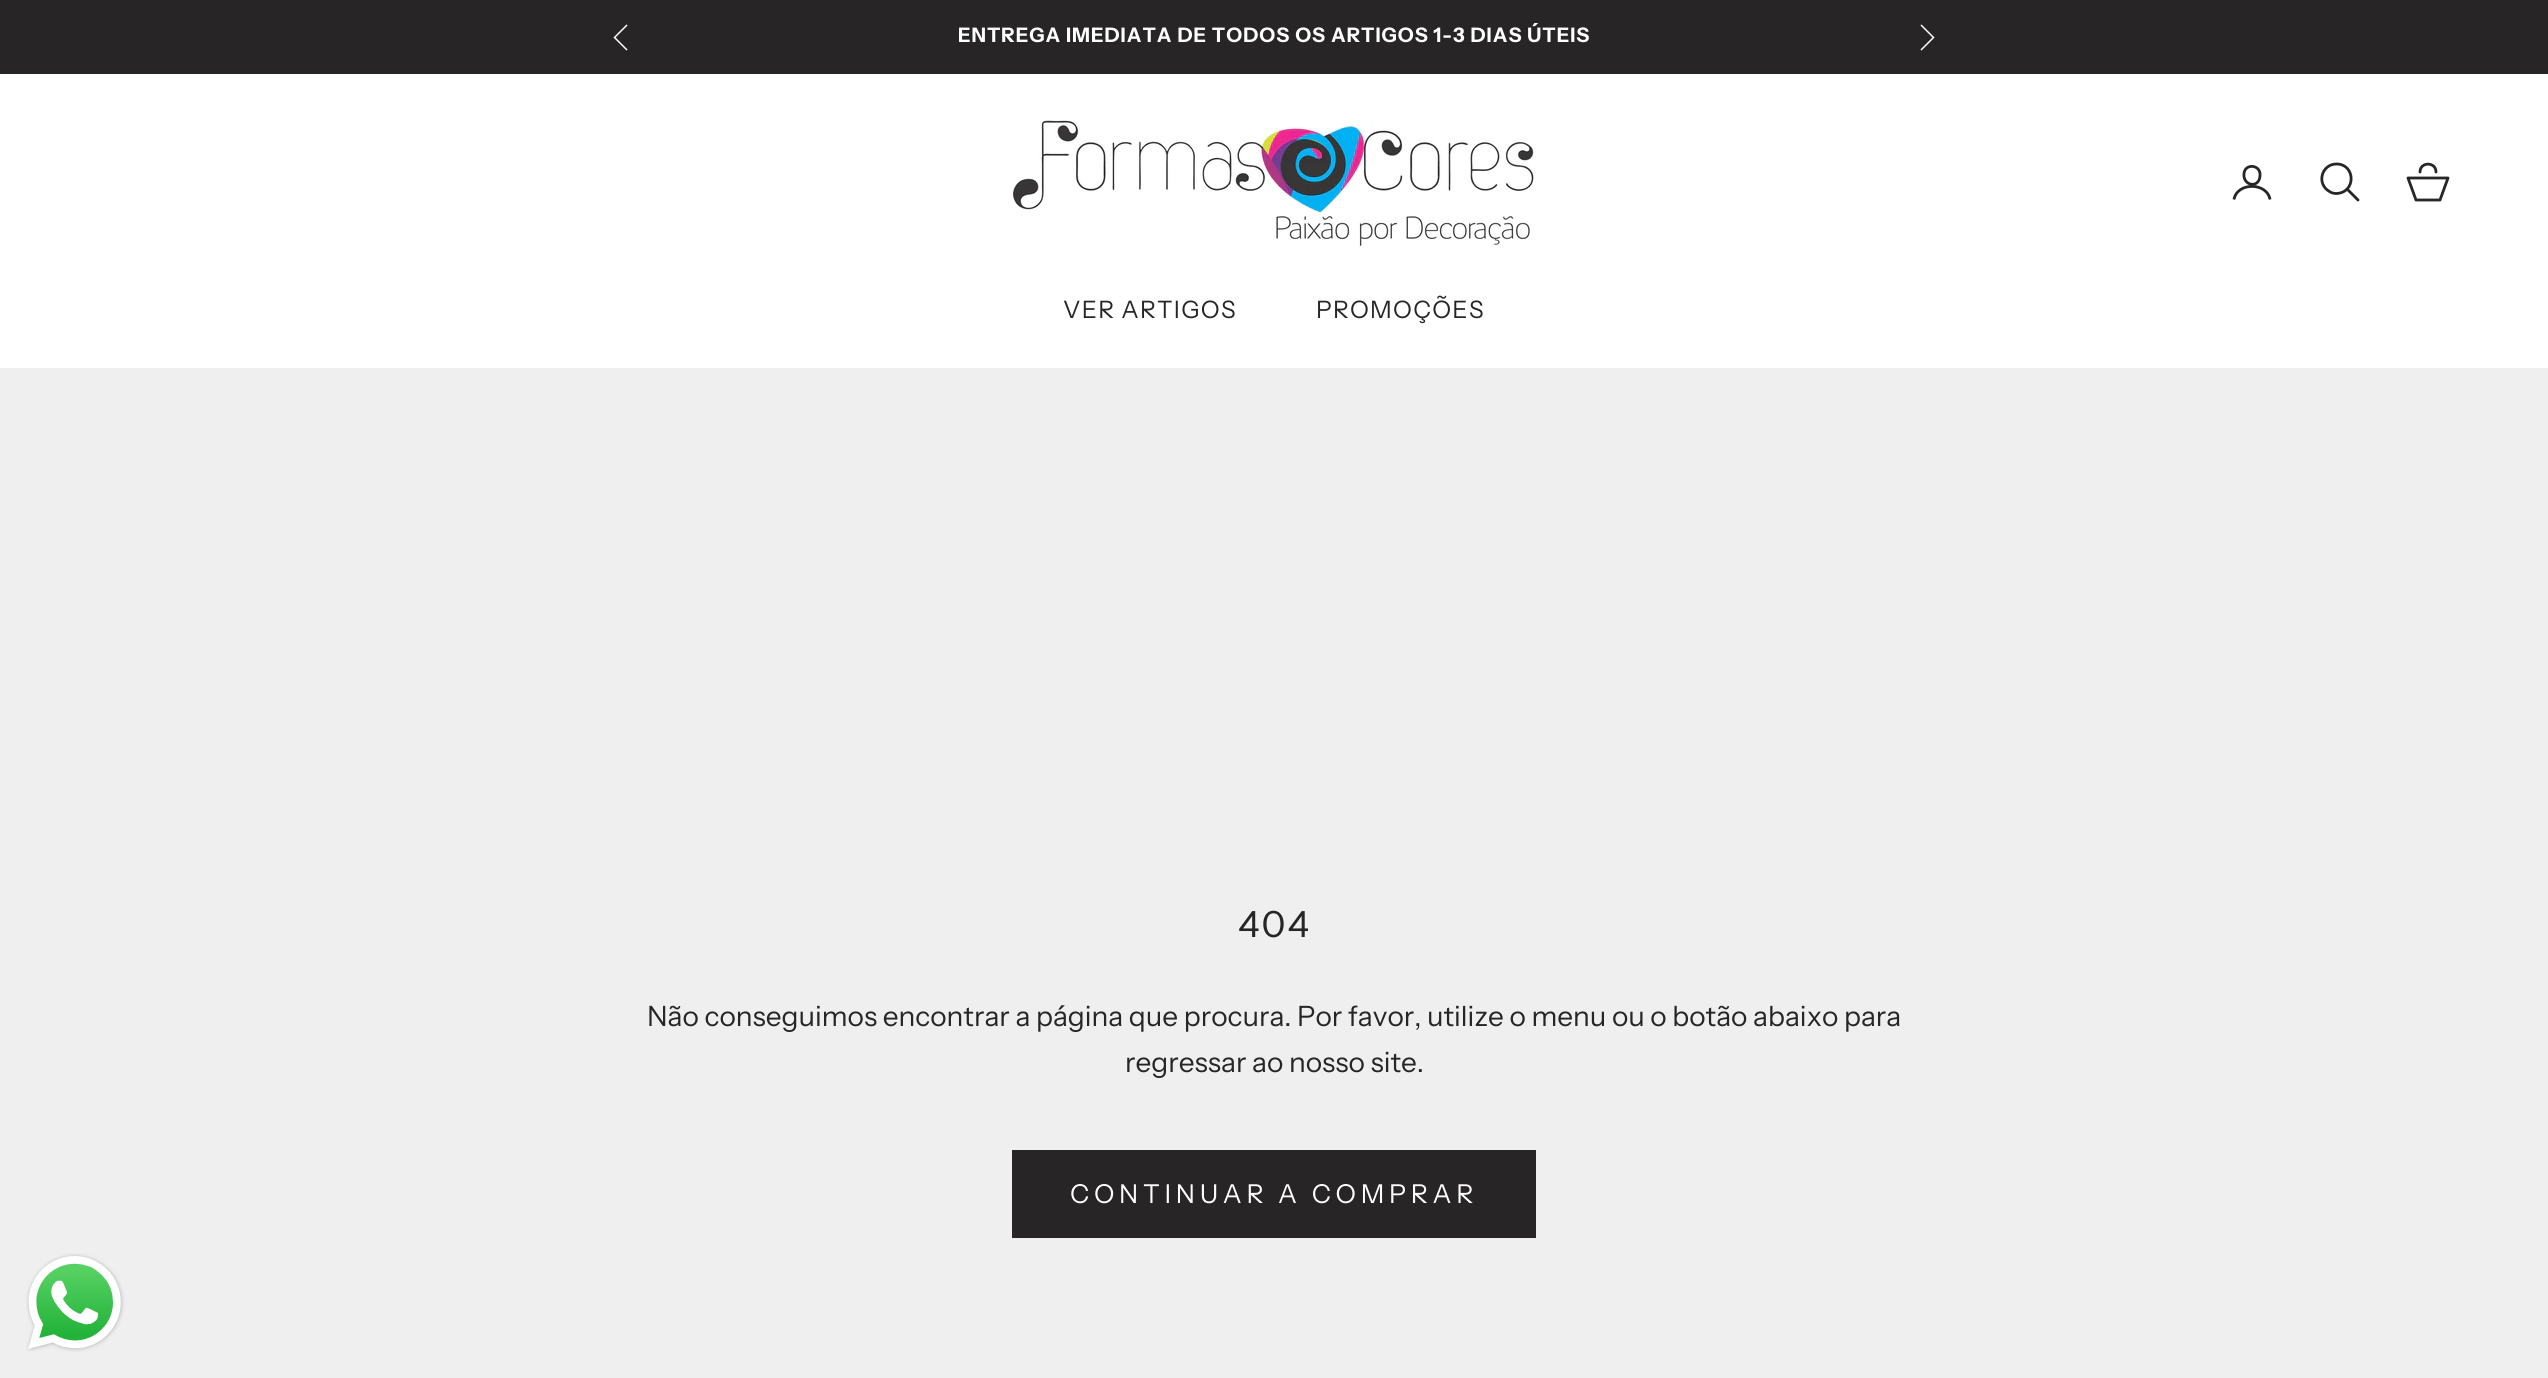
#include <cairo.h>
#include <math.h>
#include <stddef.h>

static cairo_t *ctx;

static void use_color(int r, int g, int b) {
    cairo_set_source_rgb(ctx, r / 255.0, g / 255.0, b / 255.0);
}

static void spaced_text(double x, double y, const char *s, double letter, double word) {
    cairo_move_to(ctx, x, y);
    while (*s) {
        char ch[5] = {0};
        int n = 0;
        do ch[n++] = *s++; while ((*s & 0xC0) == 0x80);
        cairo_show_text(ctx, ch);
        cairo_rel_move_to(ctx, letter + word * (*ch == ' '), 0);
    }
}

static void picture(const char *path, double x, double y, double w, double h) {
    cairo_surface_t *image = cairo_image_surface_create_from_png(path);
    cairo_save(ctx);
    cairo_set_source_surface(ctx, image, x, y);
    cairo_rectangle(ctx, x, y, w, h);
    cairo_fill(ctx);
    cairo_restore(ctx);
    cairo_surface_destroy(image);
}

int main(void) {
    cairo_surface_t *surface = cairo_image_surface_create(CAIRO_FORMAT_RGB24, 2548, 1378);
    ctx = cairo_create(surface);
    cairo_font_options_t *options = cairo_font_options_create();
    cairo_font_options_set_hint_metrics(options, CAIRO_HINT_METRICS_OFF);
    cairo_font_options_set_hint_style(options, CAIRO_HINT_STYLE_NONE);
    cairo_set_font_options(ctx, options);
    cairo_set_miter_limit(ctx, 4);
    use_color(239, 239, 239);
    cairo_paint(ctx);
    use_color(39, 37, 38);
    cairo_rectangle(ctx, 0, 0, 2548, 74);
    cairo_fill(ctx);
    cairo_new_path(ctx);
    cairo_move_to(ctx, 626.5, 25.5);
    cairo_line_to(ctx, 614.5, 37.5);
    cairo_line_to(ctx, 626.5, 49.5);
    use_color(255, 255, 255);
    cairo_set_line_width(ctx, 1.5);
    cairo_set_line_cap(ctx, CAIRO_LINE_CAP_SQUARE);
    cairo_stroke(ctx);
    cairo_select_font_face(ctx, "Instrument Sans", CAIRO_FONT_SLANT_NORMAL, CAIRO_FONT_WEIGHT_BOLD);
    cairo_set_font_size(ctx, 20);
    spaced_text(958, 42, "ENTREGA IMEDIATA DE TODOS OS ARTIGOS 1-3 DIAS ÚTEIS", 1, 0);
    cairo_new_path(ctx);
    cairo_move_to(ctx, 1921.5, 49.5);
    cairo_line_to(ctx, 1933.5, 37.5);
    cairo_line_to(ctx, 1921.5, 25.5);
    cairo_stroke(ctx);
    cairo_rectangle(ctx, 0, 74, 2548, 294);
    cairo_fill(ctx);
    picture("img1.png", 1012, 120, 522, 127);
    cairo_new_path(ctx);
    cairo_move_to(ctx, 2260, 175.5);
    cairo_curve_to(ctx, 2259.5, 189, 2242.5, 186, 2244, 173.5);
    cairo_curve_to(ctx, 2245, 163, 2261, 164.5, 2260, 175.5);
    cairo_close_path(ctx);
    use_color(39, 37, 38);
    cairo_set_line_width(ctx, 2.8);
    cairo_set_line_cap(ctx, CAIRO_LINE_CAP_ROUND);
    cairo_set_line_join(ctx, CAIRO_LINE_JOIN_ROUND);
    cairo_stroke(ctx);
    cairo_new_path(ctx);
    cairo_move_to(ctx, 2234, 199.5);
    cairo_curve_to(ctx, 2237, 182, 2267, 182, 2270, 199.5);
    cairo_set_line_cap(ctx, CAIRO_LINE_CAP_BUTT);
    cairo_set_line_join(ctx, CAIRO_LINE_JOIN_MITER);
    cairo_stroke(ctx);
    cairo_new_path(ctx);
    cairo_move_to(ctx, 2336.5, 164);
    cairo_curve_to(ctx, 2321.5, 164, 2316, 184, 2329.5, 191.5);
    cairo_curve_to(ctx, 2331.5, 193, 2334, 193.5, 2336.5, 193.5);
    cairo_curve_to(ctx, 2356.5, 192.5, 2355.5, 164, 2336.5, 164);
    cairo_close_path(ctx);
    cairo_stroke(ctx);
    cairo_new_path(ctx);
    cairo_move_to(ctx, 2347.5, 189.5);
    cairo_line_to(ctx, 2358, 200);
    cairo_set_line_cap(ctx, CAIRO_LINE_CAP_ROUND);
    cairo_stroke(ctx);
    cairo_new_path(ctx);
    cairo_move_to(ctx, 2408, 178);
    cairo_line_to(ctx, 2448, 178);
    cairo_line_to(ctx, 2440, 200);
    cairo_line_to(ctx, 2416, 200);
    cairo_close_path(ctx);
    cairo_move_to(ctx, 2436, 172);
    cairo_curve_to(ctx, 2436, 161.5, 2420, 161.5, 2420, 172);
    cairo_set_line_join(ctx, CAIRO_LINE_JOIN_ROUND);
    cairo_stroke(ctx);
    cairo_select_font_face(ctx, "Instrument Sans", CAIRO_FONT_SLANT_NORMAL, CAIRO_FONT_WEIGHT_NORMAL);
    cairo_set_font_size(ctx, 24);
    spaced_text(1063, 318, "VER ARTIGOS", 1.25, 0);
    spaced_text(1316, 318, "PROMOÇÕES", 1.25, 0);
    cairo_set_font_size(ctx, 36);
    spaced_text(1238, 937, "404", 2, 0);
    cairo_set_font_size(ctx, 28);
    cairo_move_to(ctx, 647, 1026);
    cairo_show_text(ctx, "Não conseguimos encontrar a página que procura. Por favor, utilize o menu ou o botão abaixo para");
    cairo_move_to(ctx, 1125, 1072);
    cairo_show_text(ctx, "regressar ao nosso site.");
    cairo_rectangle(ctx, 1013, 1151, 522, 86);
    cairo_fill_preserve(ctx);
    cairo_set_line_width(ctx, 2);
    cairo_set_line_cap(ctx, CAIRO_LINE_CAP_BUTT);
    cairo_set_line_join(ctx, CAIRO_LINE_JOIN_MITER);
    cairo_stroke(ctx);
    cairo_set_font_size(ctx, 26);
    use_color(255, 255, 255);
    spaced_text(1070, 1203, "CONTINUAR A COMPRAR", 4.7, 0);
    picture("img2.png", 26, 1253, 99, 99);
    cairo_surface_write_to_png(surface, "result.png");
    cairo_font_options_destroy(options);
    cairo_destroy(ctx);
    cairo_surface_destroy(surface);
    return 0;
}
